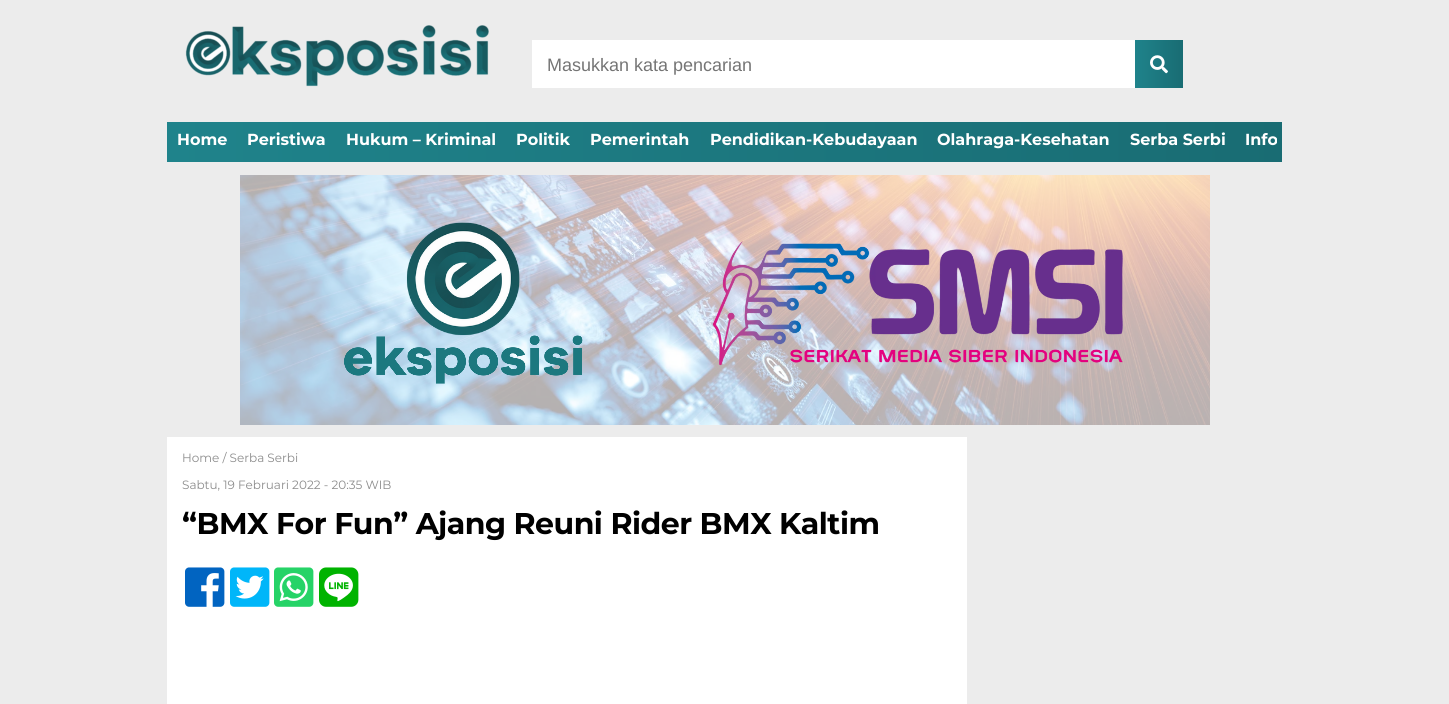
#include <cairo.h>
#include <math.h>
#include <stddef.h>

static cairo_t *ctx;

static void use_color(int r, int g, int b) {
    cairo_set_source_rgb(ctx, r / 255.0, g / 255.0, b / 255.0);
}

static void spaced_text(double x, double y, const char *s, double letter, double word) {
    cairo_move_to(ctx, x, y);
    while (*s) {
        char ch[5] = {0};
        int n = 0;
        do ch[n++] = *s++; while ((*s & 0xC0) == 0x80);
        cairo_show_text(ctx, ch);
        cairo_rel_move_to(ctx, letter + word * (*ch == ' '), 0);
    }
}

static void picture(const char *path, double x, double y, double w, double h) {
    cairo_surface_t *image = cairo_image_surface_create_from_png(path);
    cairo_save(ctx);
    cairo_set_source_surface(ctx, image, x, y);
    cairo_rectangle(ctx, x, y, w, h);
    cairo_fill(ctx);
    cairo_restore(ctx);
    cairo_surface_destroy(image);
}

int main(void) {
    cairo_surface_t *surface = cairo_image_surface_create(CAIRO_FORMAT_RGB24, 1449, 704);
    ctx = cairo_create(surface);
    cairo_font_options_t *options = cairo_font_options_create();
    cairo_font_options_set_hint_metrics(options, CAIRO_HINT_METRICS_OFF);
    cairo_font_options_set_hint_style(options, CAIRO_HINT_STYLE_NONE);
    cairo_set_font_options(ctx, options);
    cairo_set_miter_limit(ctx, 4);
    cairo_pattern_t *gradient;
    use_color(236, 236, 236);
    cairo_paint(ctx);
    picture("img1.png", 185, 25, 304, 62);
    use_color(255, 255, 255);
    cairo_rectangle(ctx, 532, 40, 603, 48);
    cairo_fill(ctx);
    cairo_select_font_face(ctx, "Liberation Sans", CAIRO_FONT_SLANT_NORMAL, CAIRO_FONT_WEIGHT_NORMAL);
    cairo_set_font_size(ctx, 18);
    use_color(117, 117, 117);
    cairo_move_to(ctx, 547, 71);
    cairo_show_text(ctx, "Masukkan kata pencarian");
    gradient = cairo_pattern_create_linear(1135, 64, 1183, 64);
    cairo_pattern_add_color_stop_rgba(gradient, 0, 0.122, 0.514, 0.545, 1);
    cairo_pattern_add_color_stop_rgba(gradient, 1, 0.098, 0.424, 0.451, 1);
    cairo_set_source(ctx, gradient);
    cairo_pattern_destroy(gradient);
    cairo_rectangle(ctx, 1135, 40, 48, 48);
    cairo_fill(ctx);
    picture("img2.png", 1150, 55, 18, 19);
    gradient = cairo_pattern_create_linear(167, 142, 1282, 142);
    cairo_pattern_add_color_stop_rgba(gradient, 0, 0.122, 0.514, 0.545, 1);
    cairo_pattern_add_color_stop_rgba(gradient, 1, 0.098, 0.424, 0.451, 1);
    cairo_set_source(ctx, gradient);
    cairo_pattern_destroy(gradient);
    cairo_rectangle(ctx, 167, 122, 1115, 40);
    cairo_fill(ctx);
    cairo_select_font_face(ctx, "Montserrat", CAIRO_FONT_SLANT_NORMAL, CAIRO_FONT_WEIGHT_BOLD);
    cairo_set_font_size(ctx, 16);
    use_color(255, 255, 255);
    cairo_move_to(ctx, 177, 145);
    cairo_show_text(ctx, "Home");
    cairo_move_to(ctx, 247, 145);
    cairo_show_text(ctx, "Peristiwa");
    cairo_move_to(ctx, 346, 145);
    cairo_show_text(ctx, "Hukum – Kriminal");
    cairo_move_to(ctx, 516, 145);
    cairo_show_text(ctx, "Politik");
    cairo_move_to(ctx, 590, 145);
    cairo_show_text(ctx, "Pemerintah");
    cairo_move_to(ctx, 710, 145);
    cairo_show_text(ctx, "Pendidikan-Kebudayaan");
    cairo_move_to(ctx, 937, 145);
    cairo_show_text(ctx, "Olahraga-Kesehatan");
    cairo_move_to(ctx, 1130, 145);
    cairo_show_text(ctx, "Serba Serbi");
    cairo_move_to(ctx, 1245, 145);
    cairo_show_text(ctx, "Info");
    picture("img3.png", 240, 175, 970, 250);
    cairo_rectangle(ctx, 167, 437, 800, 267);
    cairo_fill(ctx);
    cairo_select_font_face(ctx, "Montserrat", CAIRO_FONT_SLANT_NORMAL, CAIRO_FONT_WEIGHT_NORMAL);
    cairo_set_font_size(ctx, 12);
    use_color(140, 140, 140);
    cairo_move_to(ctx, 182, 462);
    cairo_show_text(ctx, "Home / Serba Serbi");
    cairo_move_to(ctx, 182, 489);
    cairo_show_text(ctx, "Sabtu, 19 Februari 2022 - 20:35 WIB");
    cairo_select_font_face(ctx, "Montserrat", CAIRO_FONT_SLANT_NORMAL, CAIRO_FONT_WEIGHT_BOLD);
    cairo_set_font_size(ctx, 30);
    use_color(0, 0, 0);
    spaced_text(182, 534, "“BMX For Fun” Ajang Reuni Rider BMX Kaltim", -0.5, 0);
    picture("img4.png", 185, 567, 40, 40);
    picture("img5.png", 230, 567, 40, 40);
    picture("img6.png", 274, 567, 40, 40);
    picture("img7.png", 319, 567, 40, 40);
    cairo_surface_write_to_png(surface, "result.png");
    cairo_font_options_destroy(options);
    cairo_destroy(ctx);
    cairo_surface_destroy(surface);
    return 0;
}
